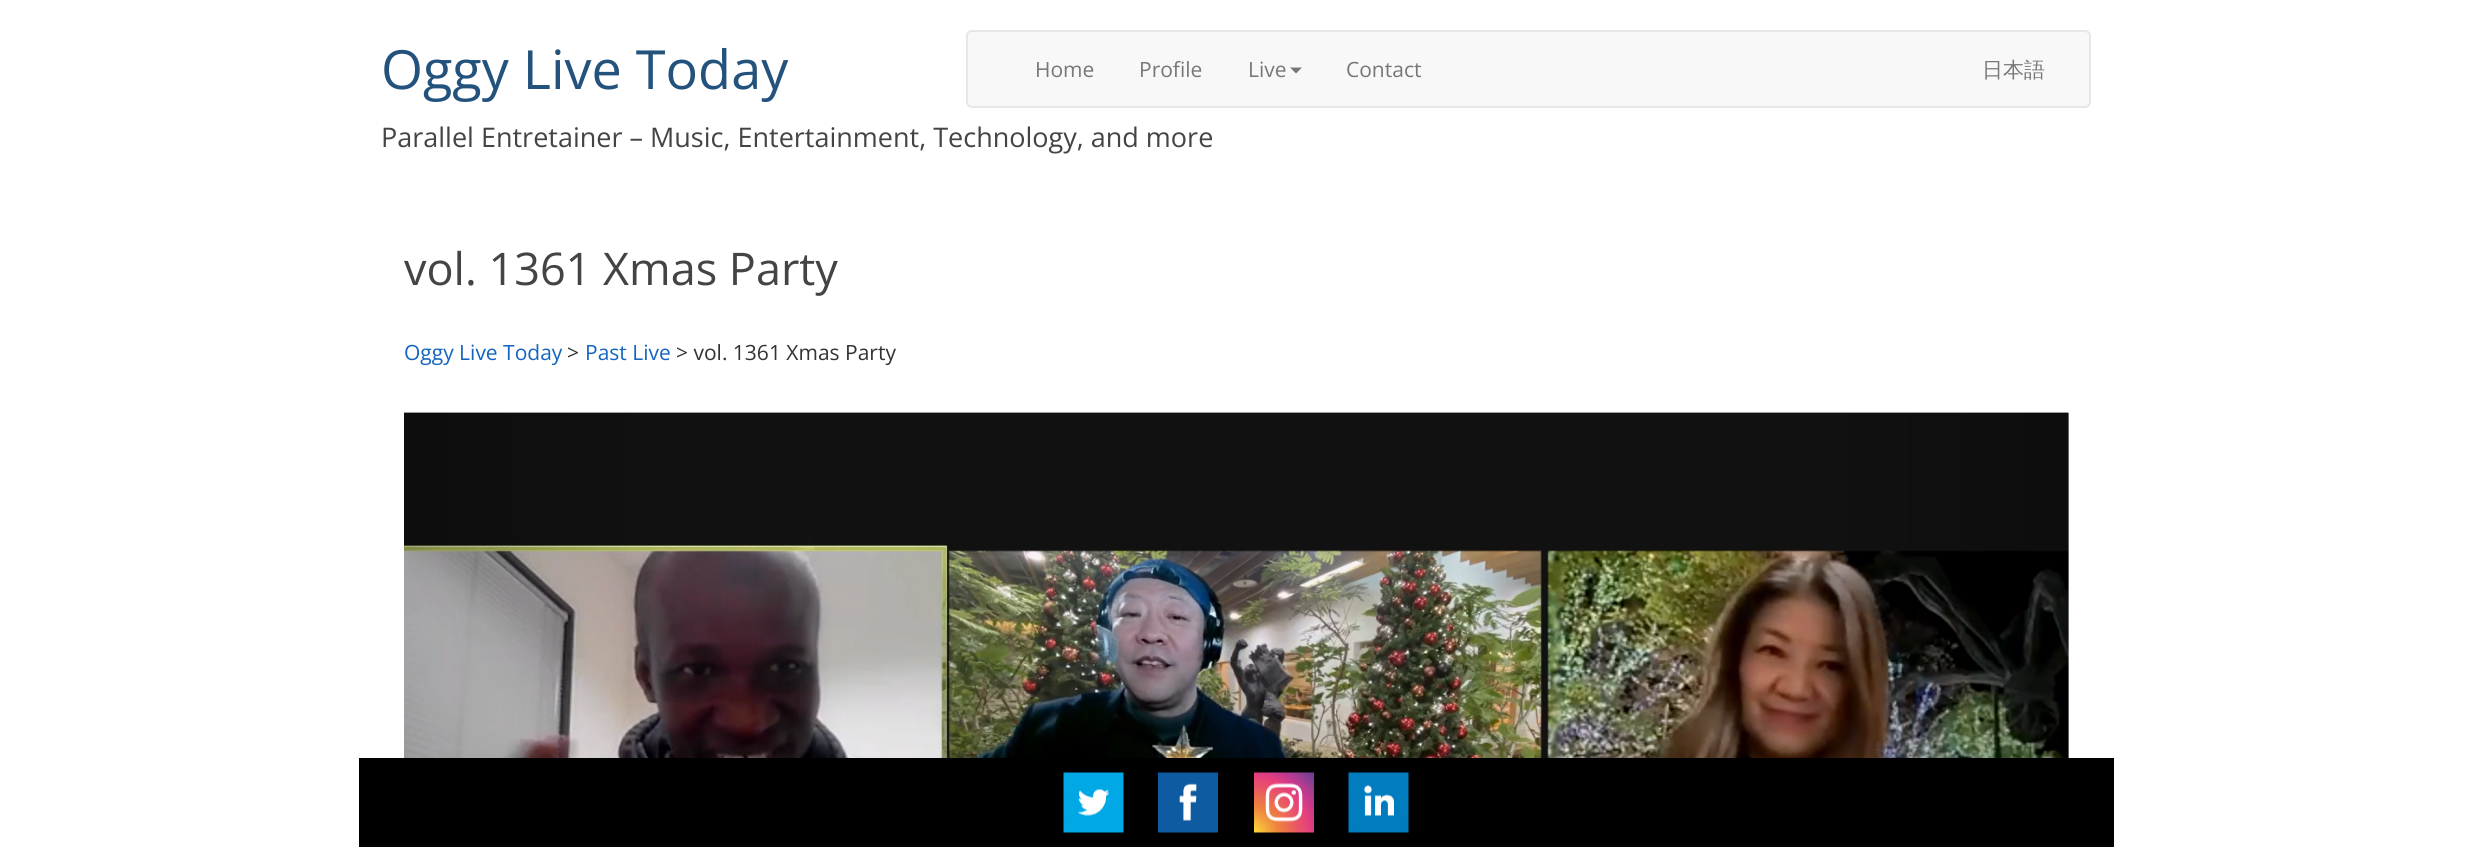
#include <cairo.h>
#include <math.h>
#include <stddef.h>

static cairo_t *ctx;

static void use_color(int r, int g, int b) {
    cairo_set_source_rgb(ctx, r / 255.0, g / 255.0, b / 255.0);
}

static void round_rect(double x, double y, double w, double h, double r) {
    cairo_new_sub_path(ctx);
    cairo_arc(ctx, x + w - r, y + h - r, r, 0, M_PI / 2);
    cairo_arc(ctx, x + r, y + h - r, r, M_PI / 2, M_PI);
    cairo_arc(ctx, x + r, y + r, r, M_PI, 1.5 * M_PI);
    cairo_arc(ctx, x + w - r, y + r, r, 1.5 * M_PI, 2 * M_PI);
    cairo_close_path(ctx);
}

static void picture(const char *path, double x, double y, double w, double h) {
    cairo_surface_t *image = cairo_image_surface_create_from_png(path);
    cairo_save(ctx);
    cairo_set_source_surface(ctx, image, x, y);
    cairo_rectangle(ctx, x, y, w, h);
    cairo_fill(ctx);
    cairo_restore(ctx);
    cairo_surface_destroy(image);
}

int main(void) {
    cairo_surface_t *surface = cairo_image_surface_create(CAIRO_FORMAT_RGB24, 2471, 847);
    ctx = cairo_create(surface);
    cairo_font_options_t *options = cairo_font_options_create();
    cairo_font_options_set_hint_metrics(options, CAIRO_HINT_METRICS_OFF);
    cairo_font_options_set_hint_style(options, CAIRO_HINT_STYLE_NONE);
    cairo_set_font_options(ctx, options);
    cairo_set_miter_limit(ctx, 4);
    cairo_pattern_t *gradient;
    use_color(255, 255, 255);
    cairo_paint(ctx);
    cairo_select_font_face(ctx, "Open Sans", CAIRO_FONT_SLANT_NORMAL, CAIRO_FONT_WEIGHT_NORMAL);
    cairo_set_font_size(ctx, 54);
    use_color(35, 82, 124);
    cairo_move_to(ctx, 381, 89);
    cairo_show_text(ctx, "Oggy Live Today");
    use_color(248, 248, 248);
    round_rect(967, 31, 1123, 76, 5);
    cairo_fill_preserve(ctx);
    use_color(231, 231, 231);
    cairo_stroke(ctx);
    cairo_set_font_size(ctx, 21);
    use_color(119, 119, 119);
    cairo_move_to(ctx, 1035, 77);
    cairo_show_text(ctx, "Home");
    cairo_move_to(ctx, 1139, 77);
    cairo_show_text(ctx, "Profile");
    cairo_move_to(ctx, 1248, 77);
    cairo_show_text(ctx, "Live");
    cairo_new_path(ctx);
    cairo_move_to(ctx, 1290, 67.5);
    cairo_line_to(ctx, 1302, 67.5);
    cairo_line_to(ctx, 1296, 73.5);
    cairo_close_path(ctx);
    cairo_fill(ctx);
    cairo_move_to(ctx, 1346, 77);
    cairo_show_text(ctx, "Contact");
    cairo_select_font_face(ctx, "WenQuanYi Zen Hei Medium", CAIRO_FONT_SLANT_NORMAL, CAIRO_FONT_WEIGHT_NORMAL);
    cairo_move_to(ctx, 1982, 77);
    cairo_show_text(ctx, "日本語");
    cairo_select_font_face(ctx, "Open Sans", CAIRO_FONT_SLANT_NORMAL, CAIRO_FONT_WEIGHT_NORMAL);
    cairo_set_font_size(ctx, 27);
    use_color(68, 68, 68);
    cairo_move_to(ctx, 381, 147);
    cairo_show_text(ctx, "Parallel Entretainer – Music, Entertainment, Technology, and more");
    cairo_set_font_size(ctx, 45);
    cairo_move_to(ctx, 404, 285);
    cairo_show_text(ctx, "vol. 1361 Xmas Party");
    cairo_set_font_size(ctx, 21);
    use_color(21, 101, 192);
    cairo_move_to(ctx, 404, 360);
    cairo_show_text(ctx, "Oggy Live Today");
    use_color(51, 51, 51);
    cairo_move_to(ctx, 567, 360);
    cairo_show_text(ctx, ">");
    use_color(21, 101, 192);
    cairo_move_to(ctx, 585, 360);
    cairo_show_text(ctx, "Past Live");
    use_color(51, 51, 51);
    cairo_move_to(ctx, 676, 360);
    cairo_show_text(ctx, "> vol. 1361 Xmas Party");
    picture("img1.png", 404, 412, 1665, 346);
    gradient = cairo_pattern_create_linear(1820, 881, 2069, 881);
    cairo_pattern_add_color_stop_rgba(gradient, 0, 0, 0, 0, 0);
    cairo_pattern_add_color_stop_rgba(gradient, 1, 0, 0, 0, 0.25);
    cairo_set_source(ctx, gradient);
    cairo_pattern_destroy(gradient);
    cairo_rectangle(ctx, 1841, 413, 228, 345);
    cairo_fill(ctx);
    use_color(0, 0, 0);
    cairo_rectangle(ctx, 359, 758, 1755, 89);
    cairo_fill(ctx);
    picture("img2.png", 1063, 772, 61, 61);
    picture("img3.png", 1158, 772, 60, 61);
    picture("img4.png", 1254, 772, 60, 61);
    picture("img5.png", 1348, 772, 61, 61);
    cairo_surface_write_to_png(surface, "result.png");
    cairo_font_options_destroy(options);
    cairo_destroy(ctx);
    cairo_surface_destroy(surface);
    return 0;
}
